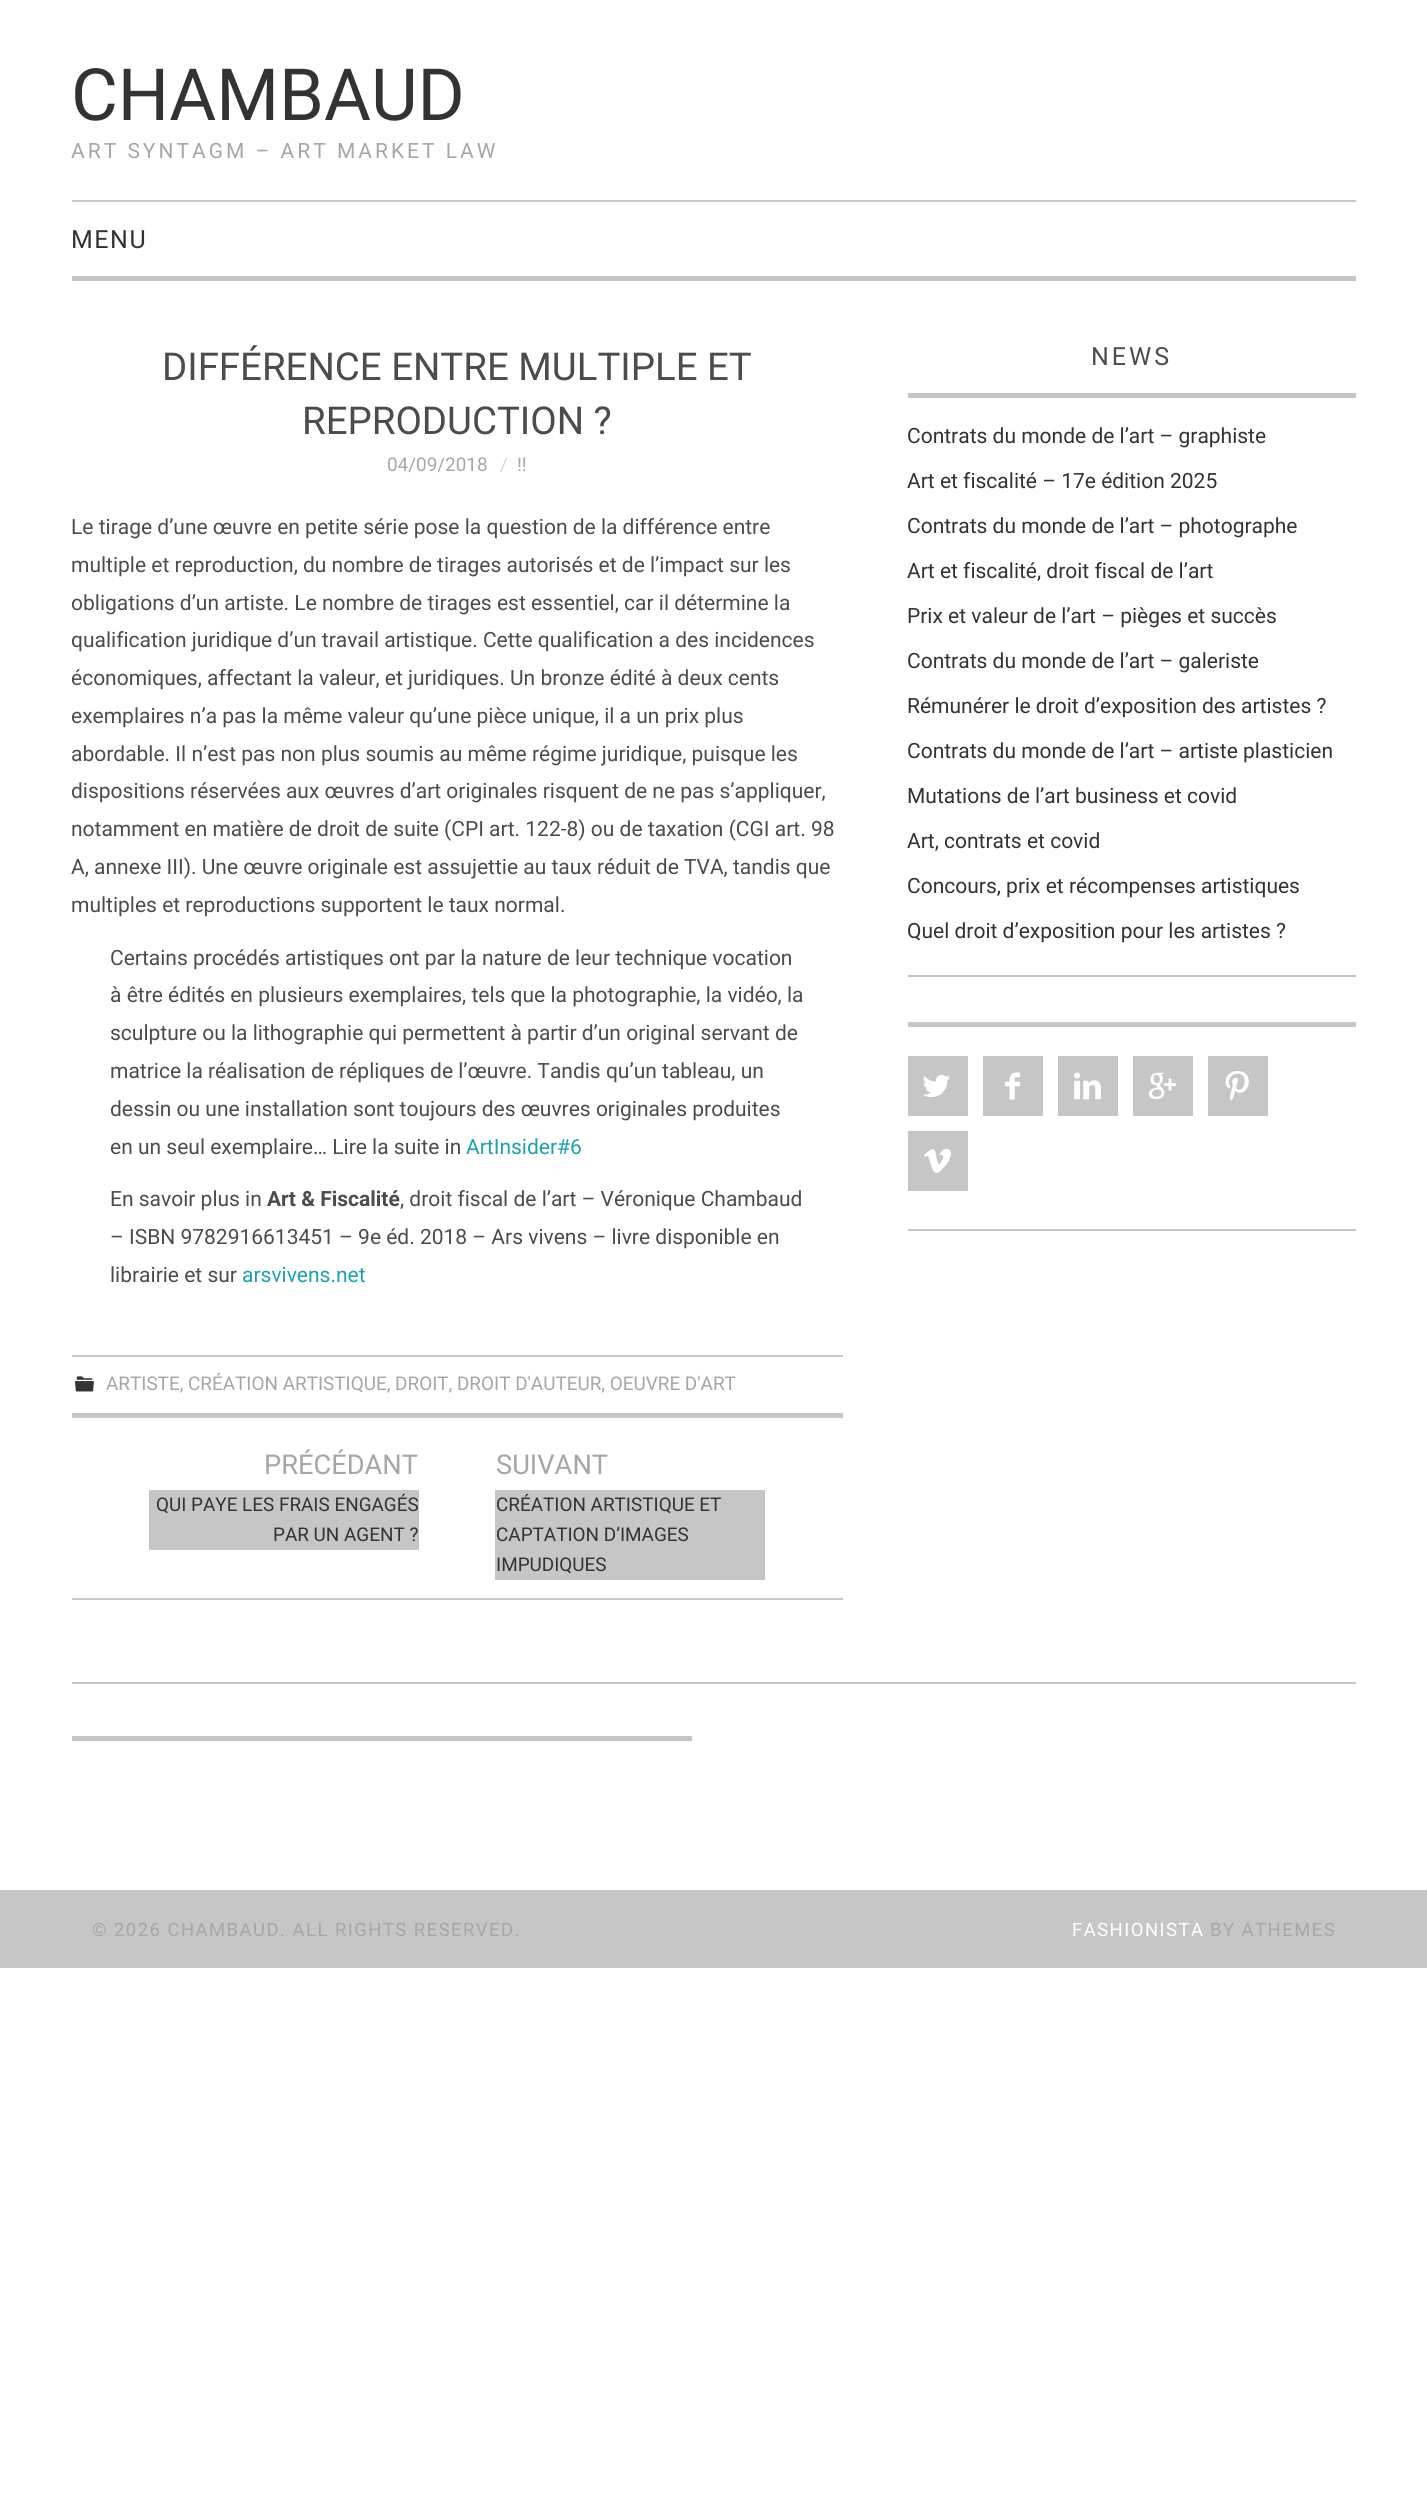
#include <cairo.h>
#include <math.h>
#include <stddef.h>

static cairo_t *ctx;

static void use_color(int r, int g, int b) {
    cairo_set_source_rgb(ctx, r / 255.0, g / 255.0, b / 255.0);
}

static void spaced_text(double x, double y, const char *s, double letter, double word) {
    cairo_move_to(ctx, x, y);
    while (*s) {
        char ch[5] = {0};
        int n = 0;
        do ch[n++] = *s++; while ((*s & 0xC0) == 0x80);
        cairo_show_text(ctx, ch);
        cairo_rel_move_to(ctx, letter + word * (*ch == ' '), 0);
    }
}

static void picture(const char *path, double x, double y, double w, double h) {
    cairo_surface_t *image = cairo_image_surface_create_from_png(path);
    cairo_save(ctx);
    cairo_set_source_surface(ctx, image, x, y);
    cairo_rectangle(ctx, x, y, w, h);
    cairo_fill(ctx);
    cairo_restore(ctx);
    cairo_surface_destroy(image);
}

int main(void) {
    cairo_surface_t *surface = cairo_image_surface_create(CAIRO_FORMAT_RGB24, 1427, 2504);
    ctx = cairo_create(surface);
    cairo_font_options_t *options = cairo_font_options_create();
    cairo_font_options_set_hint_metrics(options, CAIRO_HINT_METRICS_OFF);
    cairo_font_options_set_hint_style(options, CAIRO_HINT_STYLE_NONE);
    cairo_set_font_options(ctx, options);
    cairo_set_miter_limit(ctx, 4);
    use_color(255, 255, 255);
    cairo_paint(ctx);
    cairo_select_font_face(ctx, "Roboto", CAIRO_FONT_SLANT_NORMAL, CAIRO_FONT_WEIGHT_NORMAL);
    cairo_set_font_size(ctx, 72);
    use_color(51, 51, 51);
    cairo_move_to(ctx, 71, 120);
    cairo_show_text(ctx, "CHAMBAUD");
    cairo_set_font_size(ctx, 21);
    use_color(166, 166, 166);
    spaced_text(71, 158, "ART SYNTAGM – ART MARKET LAW", 3, 0);
    use_color(198, 198, 198);
    cairo_rectangle(ctx, 72, 200, 1284, 2);
    cairo_fill(ctx);
    cairo_rectangle(ctx, 72, 276, 1284, 5);
    cairo_fill(ctx);
    cairo_set_font_size(ctx, 25);
    use_color(51, 51, 51);
    spaced_text(71, 248, "MENU", 1.5, 0);
    cairo_set_font_size(ctx, 38.4);
    use_color(76, 76, 76);
    cairo_move_to(ctx, 162, 380);
    cairo_show_text(ctx, "DIFFÉRENCE ENTRE MULTIPLE ET");
    cairo_move_to(ctx, 302, 434);
    cairo_show_text(ctx, "REPRODUCTION ?");
    cairo_set_font_size(ctx, 18.9);
    use_color(166, 166, 166);
    cairo_move_to(ctx, 387, 471);
    cairo_show_text(ctx, "04/09/2018");
    use_color(214, 214, 214);
    cairo_move_to(ctx, 500, 471);
    cairo_show_text(ctx, "/");
    use_color(166, 166, 166);
    cairo_move_to(ctx, 517, 471);
    cairo_show_text(ctx, "!!");
    cairo_set_font_size(ctx, 21);
    use_color(76, 76, 76);
    cairo_move_to(ctx, 71, 534);
    cairo_show_text(ctx, "Le tirage d’une œuvre en petite série pose la question de la différence entre");
    cairo_move_to(ctx, 71, 572);
    cairo_show_text(ctx, "multiple et reproduction, du nombre de tirages autorisés et de l’impact sur les");
    cairo_move_to(ctx, 71, 610);
    cairo_show_text(ctx, "obligations d’un artiste. Le nombre de tirages est essentiel, car il détermine la");
    cairo_move_to(ctx, 71, 647);
    cairo_show_text(ctx, "qualification juridique d’un travail artistique. Cette qualification a des incidences");
    cairo_move_to(ctx, 71, 685);
    cairo_show_text(ctx, "économiques, affectant la valeur, et juridiques. Un bronze édité à deux cents");
    cairo_move_to(ctx, 71, 723);
    cairo_show_text(ctx, "exemplaires n’a pas la même valeur qu’une pièce unique, il a un prix plus");
    cairo_move_to(ctx, 71, 761);
    cairo_show_text(ctx, "abordable. Il n’est pas non plus soumis au même régime juridique, puisque les");
    cairo_move_to(ctx, 71, 798);
    cairo_show_text(ctx, "dispositions réservées aux œuvres d’art originales risquent de ne pas s’appliquer,");
    cairo_move_to(ctx, 71, 836);
    cairo_show_text(ctx, "notamment en matière de droit de suite (CPI art. 122-8) ou de taxation (CGI art. 98");
    cairo_move_to(ctx, 71, 874);
    cairo_show_text(ctx, "A, annexe III). Une œuvre originale est assujettie au taux réduit de TVA, tandis que");
    cairo_move_to(ctx, 71, 912);
    cairo_show_text(ctx, "multiples et reproductions supportent le taux normal.");
    cairo_move_to(ctx, 110, 965);
    cairo_show_text(ctx, "Certains procédés artistiques ont par la nature de leur technique vocation");
    cairo_move_to(ctx, 110, 1002);
    cairo_show_text(ctx, "à être édités en plusieurs exemplaires, tels que la photographie, la vidéo, la");
    cairo_move_to(ctx, 110, 1040);
    cairo_show_text(ctx, "sculpture ou la lithographie qui permettent à partir d’un original servant de");
    cairo_move_to(ctx, 110, 1078);
    cairo_show_text(ctx, "matrice la réalisation de répliques de l’œuvre. Tandis qu’un tableau, un");
    cairo_move_to(ctx, 110, 1116);
    cairo_show_text(ctx, "dessin ou une installation sont toujours des œuvres originales produites");
    cairo_move_to(ctx, 110, 1154);
    cairo_show_text(ctx, "en un seul exemplaire… Lire la suite in");
    use_color(31, 160, 174);
    cairo_move_to(ctx, 466, 1154);
    cairo_show_text(ctx, "ArtInsider#6");
    use_color(76, 76, 76);
    cairo_move_to(ctx, 110, 1206);
    cairo_show_text(ctx, "En savoir plus in");
    cairo_select_font_face(ctx, "Roboto", CAIRO_FONT_SLANT_NORMAL, CAIRO_FONT_WEIGHT_BOLD);
    cairo_move_to(ctx, 267, 1206);
    cairo_show_text(ctx, "Art & Fiscalité");
    cairo_select_font_face(ctx, "Roboto", CAIRO_FONT_SLANT_NORMAL, CAIRO_FONT_WEIGHT_NORMAL);
    cairo_move_to(ctx, 400, 1206);
    cairo_show_text(ctx, ", droit fiscal de l’art – Véronique Chambaud");
    cairo_move_to(ctx, 110, 1244);
    cairo_show_text(ctx, "– ISBN 9782916613451 – 9e éd. 2018 – Ars vivens – livre disponible en");
    cairo_move_to(ctx, 110, 1282);
    cairo_show_text(ctx, "librairie et sur");
    use_color(31, 160, 174);
    cairo_move_to(ctx, 242, 1282);
    cairo_show_text(ctx, "arsvivens.net");
    use_color(198, 198, 198);
    cairo_rectangle(ctx, 72, 1355, 771, 2);
    cairo_fill(ctx);
    cairo_rectangle(ctx, 72, 1413, 771, 5);
    cairo_fill(ctx);
    picture("img1.png", 75, 1376, 19, 16);
    cairo_set_font_size(ctx, 18.9);
    use_color(166, 166, 166);
    cairo_move_to(ctx, 106, 1390);
    cairo_show_text(ctx, "ARTISTE, CRÉATION ARTISTIQUE, DROIT, DROIT D'AUTEUR, OEUVRE D'ART");
    use_color(198, 198, 198);
    cairo_rectangle(ctx, 72, 1598, 771, 2);
    cairo_fill(ctx);
    cairo_set_font_size(ctx, 27.25);
    use_color(166, 166, 166);
    cairo_move_to(ctx, 264, 1474);
    cairo_show_text(ctx, "PRÉCÉDANT");
    use_color(198, 198, 198);
    cairo_rectangle(ctx, 149, 1490, 270, 60);
    cairo_fill(ctx);
    cairo_set_font_size(ctx, 18.9);
    use_color(51, 51, 51);
    cairo_move_to(ctx, 156, 1511);
    cairo_show_text(ctx, "QUI PAYE LES FRAIS ENGAGÉS");
    cairo_move_to(ctx, 273, 1541);
    cairo_show_text(ctx, "PAR UN AGENT ?");
    cairo_set_font_size(ctx, 27.25);
    use_color(166, 166, 166);
    cairo_move_to(ctx, 496, 1474);
    cairo_show_text(ctx, "SUIVANT");
    use_color(198, 198, 198);
    cairo_rectangle(ctx, 495, 1490, 270, 90);
    cairo_fill(ctx);
    cairo_set_font_size(ctx, 18.9);
    use_color(51, 51, 51);
    cairo_move_to(ctx, 496, 1511);
    cairo_show_text(ctx, "CRÉATION ARTISTIQUE ET");
    cairo_move_to(ctx, 496, 1541);
    cairo_show_text(ctx, "CAPTATION D’IMAGES");
    cairo_move_to(ctx, 496, 1571);
    cairo_show_text(ctx, "IMPUDIQUES");
    use_color(198, 198, 198);
    cairo_rectangle(ctx, 908, 975, 448, 2);
    cairo_fill(ctx);
    cairo_rectangle(ctx, 908, 393, 448, 5);
    cairo_fill(ctx);
    cairo_set_font_size(ctx, 25);
    use_color(76, 76, 76);
    spaced_text(1091, 365, "NEWS", 3, 0);
    cairo_set_font_size(ctx, 21);
    use_color(51, 51, 51);
    cairo_move_to(ctx, 907, 443);
    cairo_show_text(ctx, "Contrats du monde de l’art – graphiste");
    cairo_move_to(ctx, 907, 488);
    cairo_show_text(ctx, "Art et fiscalité – 17e édition 2025");
    cairo_move_to(ctx, 907, 533);
    cairo_show_text(ctx, "Contrats du monde de l’art – photographe");
    cairo_move_to(ctx, 907, 578);
    cairo_show_text(ctx, "Art et fiscalité, droit fiscal de l’art");
    cairo_move_to(ctx, 907, 623);
    cairo_show_text(ctx, "Prix et valeur de l’art – pièges et succès");
    cairo_move_to(ctx, 907, 668);
    cairo_show_text(ctx, "Contrats du monde de l’art – galeriste");
    cairo_move_to(ctx, 907, 713);
    cairo_show_text(ctx, "Rémunérer le droit d’exposition des artistes ?");
    cairo_move_to(ctx, 907, 758);
    cairo_show_text(ctx, "Contrats du monde de l’art – artiste plasticien");
    cairo_move_to(ctx, 907, 803);
    cairo_show_text(ctx, "Mutations de l’art business et covid");
    cairo_move_to(ctx, 907, 848);
    cairo_show_text(ctx, "Art, contrats et covid");
    cairo_move_to(ctx, 907, 893);
    cairo_show_text(ctx, "Concours, prix et récompenses artistiques");
    cairo_move_to(ctx, 907, 938);
    cairo_show_text(ctx, "Quel droit d’exposition pour les artistes ?");
    use_color(198, 198, 198);
    cairo_rectangle(ctx, 908, 1229, 448, 2);
    cairo_fill(ctx);
    cairo_rectangle(ctx, 908, 1022, 448, 5);
    cairo_fill(ctx);
    cairo_rectangle(ctx, 908, 1056, 60, 60);
    cairo_fill(ctx);
    picture("img2.png", 923, 1074, 27, 24);
    cairo_rectangle(ctx, 983, 1056, 60, 60);
    cairo_fill(ctx);
    picture("img3.png", 1005, 1072, 15, 28);
    cairo_rectangle(ctx, 1058, 1056, 60, 60);
    cairo_fill(ctx);
    picture("img4.png", 1074, 1072, 27, 28);
    cairo_rectangle(ctx, 1133, 1056, 60, 60);
    cairo_fill(ctx);
    picture("img5.png", 1149, 1072, 27, 28);
    cairo_rectangle(ctx, 1208, 1056, 60, 60);
    cairo_fill(ctx);
    picture("img6.png", 1225, 1071, 24, 30);
    cairo_rectangle(ctx, 908, 1131, 60, 60);
    cairo_fill(ctx);
    picture("img7.png", 924, 1149, 27, 24);
    cairo_rectangle(ctx, 72, 1682, 1284, 2);
    cairo_fill(ctx);
    cairo_rectangle(ctx, 72, 1736, 620, 5);
    cairo_fill(ctx);
    cairo_rectangle(ctx, 0, 1890, 1427, 78);
    cairo_fill(ctx);
    cairo_set_font_size(ctx, 18.4);
    use_color(166, 166, 166);
    spaced_text(92, 1936, "© 2026 CHAMBAUD. ALL RIGHTS RESERVED.", 1.5, 0);
    use_color(255, 255, 255);
    spaced_text(1072, 1936, "FASHIONISTA", 1.5, 0);
    use_color(166, 166, 166);
    spaced_text(1210, 1936, "BY ATHEMES", 1.5, 0);
    cairo_surface_write_to_png(surface, "result.png");
    cairo_font_options_destroy(options);
    cairo_destroy(ctx);
    cairo_surface_destroy(surface);
    return 0;
}
